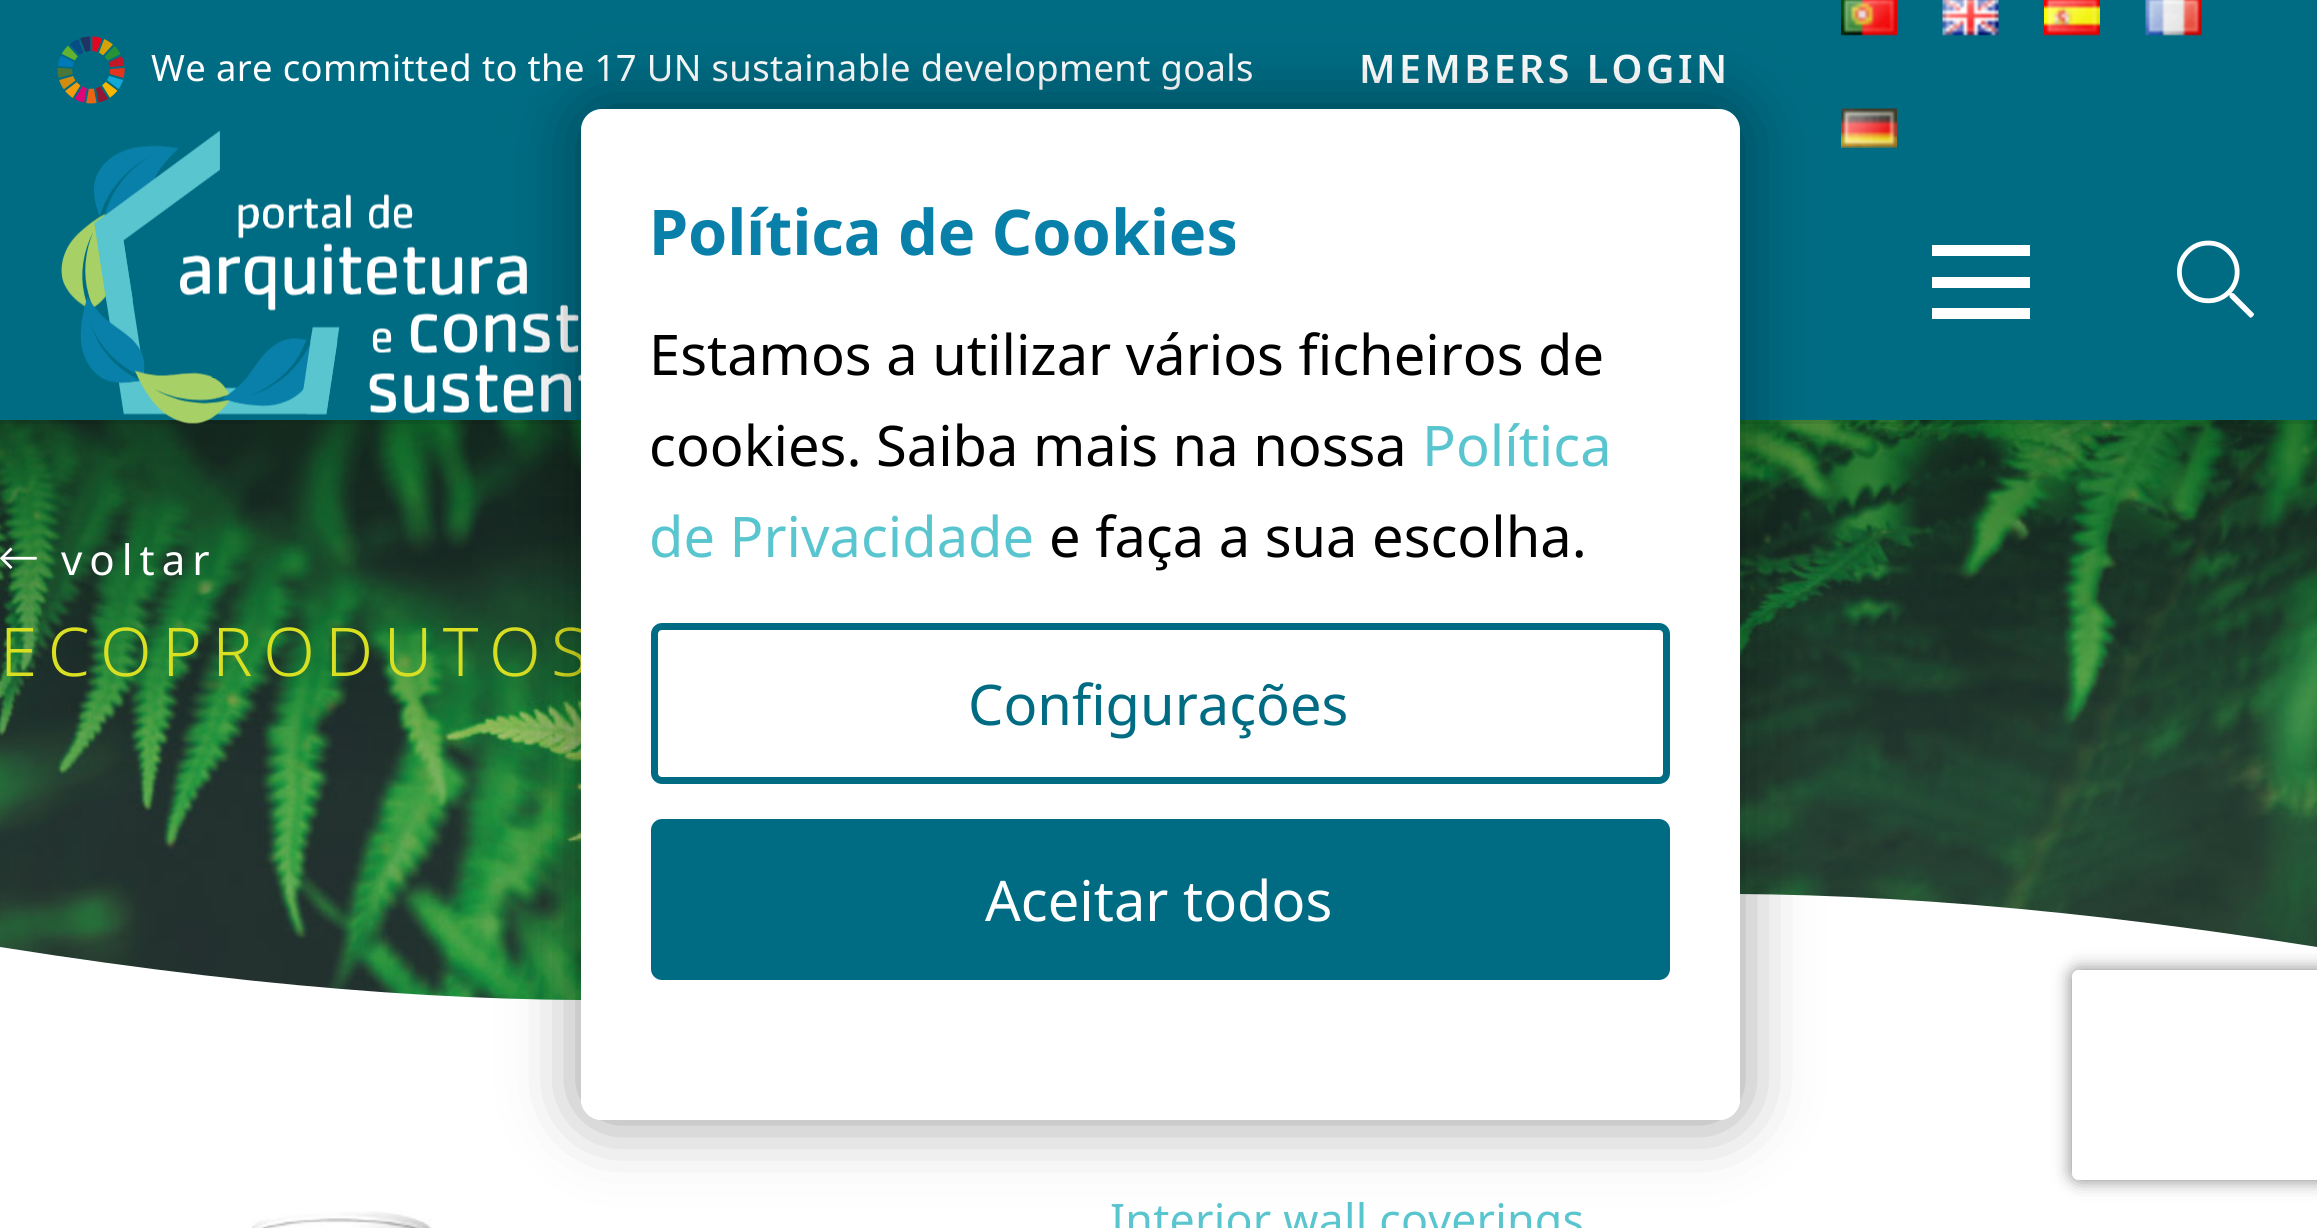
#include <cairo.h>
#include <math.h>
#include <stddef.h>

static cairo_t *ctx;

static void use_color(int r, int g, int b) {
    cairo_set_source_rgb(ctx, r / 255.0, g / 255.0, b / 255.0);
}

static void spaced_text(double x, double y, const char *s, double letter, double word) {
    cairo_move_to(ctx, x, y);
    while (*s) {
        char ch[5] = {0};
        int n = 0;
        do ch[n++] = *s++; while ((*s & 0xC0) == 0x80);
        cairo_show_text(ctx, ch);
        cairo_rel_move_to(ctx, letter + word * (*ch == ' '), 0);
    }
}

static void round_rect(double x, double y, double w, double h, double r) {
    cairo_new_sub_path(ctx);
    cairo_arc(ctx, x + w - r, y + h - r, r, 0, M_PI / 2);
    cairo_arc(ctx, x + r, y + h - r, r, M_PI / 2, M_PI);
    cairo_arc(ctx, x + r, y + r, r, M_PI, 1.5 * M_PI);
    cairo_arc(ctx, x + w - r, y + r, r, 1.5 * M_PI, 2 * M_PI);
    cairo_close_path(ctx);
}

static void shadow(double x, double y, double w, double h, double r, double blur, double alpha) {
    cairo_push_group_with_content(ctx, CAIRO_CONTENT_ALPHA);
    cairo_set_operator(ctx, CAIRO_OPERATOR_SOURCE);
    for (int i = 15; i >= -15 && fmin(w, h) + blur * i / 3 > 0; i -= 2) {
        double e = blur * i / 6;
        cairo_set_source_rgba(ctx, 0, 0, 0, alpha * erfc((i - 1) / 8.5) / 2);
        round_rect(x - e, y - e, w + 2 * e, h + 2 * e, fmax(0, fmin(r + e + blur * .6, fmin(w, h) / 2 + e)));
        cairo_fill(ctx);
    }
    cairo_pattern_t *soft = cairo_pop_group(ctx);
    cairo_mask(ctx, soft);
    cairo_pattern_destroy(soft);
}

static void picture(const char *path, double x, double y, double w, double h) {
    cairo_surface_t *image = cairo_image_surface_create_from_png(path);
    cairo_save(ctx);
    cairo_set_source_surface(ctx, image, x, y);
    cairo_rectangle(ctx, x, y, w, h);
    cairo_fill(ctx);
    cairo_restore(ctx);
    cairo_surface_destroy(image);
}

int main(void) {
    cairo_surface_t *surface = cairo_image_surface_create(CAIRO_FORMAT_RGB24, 2317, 1228);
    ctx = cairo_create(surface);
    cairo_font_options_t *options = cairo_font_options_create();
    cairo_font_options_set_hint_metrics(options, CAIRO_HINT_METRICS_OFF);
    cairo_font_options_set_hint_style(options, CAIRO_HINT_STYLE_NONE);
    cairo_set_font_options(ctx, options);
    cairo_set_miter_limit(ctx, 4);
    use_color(255, 255, 255);
    cairo_paint(ctx);
    use_color(0, 108, 131);
    cairo_rectangle(ctx, 0, 0, 2317, 420);
    cairo_fill(ctx);
    picture("img1.png", 57, 36, 68, 68);
    cairo_select_font_face(ctx, "Noto Sans", CAIRO_FONT_SLANT_NORMAL, CAIRO_FONT_WEIGHT_NORMAL);
    cairo_set_font_size(ctx, 36.4);
    use_color(255, 255, 255);
    spaced_text(151, 81, "We are committed to the 17 UN sustainable development goals", 0.35, 0);
    cairo_select_font_face(ctx, "Noto Sans SemiBold", CAIRO_FONT_SLANT_NORMAL, CAIRO_FONT_WEIGHT_NORMAL);
    cairo_set_font_size(ctx, 39.25);
    spaced_text(1359, 83, "MEMBERS LOGIN", 3.5, 0);
    picture("img2.png", 1841, 0, 56, 36);
    picture("img3.png", 1942, 0, 57, 36);
    picture("img4.png", 2044, 0, 56, 36);
    picture("img5.png", 2145, 0, 57, 36);
    picture("img6.png", 1841, 108, 56, 40);
    picture("img9.png", 0, 420, 2317, 581);
    cairo_set_source_rgba(ctx, 0, 0, 0, 0.08);
    cairo_rectangle(ctx, 0, 420, 2317, 4);
    cairo_fill(ctx);
    picture("img7.png", 61, 130, 520, 294);
    use_color(255, 255, 255);
    cairo_rectangle(ctx, 1932, 277, 98, 11);
    cairo_fill(ctx);
    cairo_rectangle(ctx, 1932, 245, 98, 11);
    cairo_fill(ctx);
    cairo_rectangle(ctx, 1932, 308, 98, 11);
    cairo_fill(ctx);
    picture("img8.png", 2177, 240, 77, 78);
    picture("img10.png", 0, 547, 37, 22);
    cairo_select_font_face(ctx, "Noto Sans", CAIRO_FONT_SLANT_NORMAL, CAIRO_FONT_WEIGHT_NORMAL);
    cairo_set_font_size(ctx, 42);
    spaced_text(61, 575, "voltar", 7, 0);
    cairo_select_font_face(ctx, "Noto Sans Light", CAIRO_FONT_SLANT_NORMAL, CAIRO_FONT_WEIGHT_NORMAL);
    cairo_set_font_size(ctx, 67.25);
    use_color(217, 224, 33);
    spaced_text(0, 676, "ECOPRODUTOS", 10.5, 0);
    use_color(255, 255, 255);
    cairo_new_path(ctx);
    cairo_move_to(ctx, 2317, 947);
    cairo_curve_to(ctx, 1158, 763, 1158, 1131, 0, 947);
    cairo_line_to(ctx, 0, 1008);
    cairo_line_to(ctx, 2317, 1008);
    cairo_close_path(ctx);
    cairo_fill(ctx);
    picture("img11.png", 251, 1211, 181, 17);
    cairo_select_font_face(ctx, "Noto Sans", CAIRO_FONT_SLANT_NORMAL, CAIRO_FONT_WEIGHT_NORMAL);
    cairo_set_font_size(ctx, 44.75);
    use_color(89, 197, 207);
    spaced_text(1110, 1236, "Interior wall coverings", 0.2, 0);
    cairo_save(ctx);
    cairo_set_fill_rule(ctx, CAIRO_FILL_RULE_EVEN_ODD);
    cairo_new_path(ctx);
    cairo_move_to(ctx, 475, 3);
    cairo_line_to(ctx, 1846, 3);
    cairo_line_to(ctx, 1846, 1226);
    cairo_line_to(ctx, 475, 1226);
    cairo_close_path(ctx);
    cairo_move_to(ctx, 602, 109);
    cairo_line_to(ctx, 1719, 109);
    cairo_curve_to(ctx, 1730.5, 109, 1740, 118.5, 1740, 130);
    cairo_line_to(ctx, 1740, 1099);
    cairo_curve_to(ctx, 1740, 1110.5, 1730.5, 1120, 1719, 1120);
    cairo_line_to(ctx, 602, 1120);
    cairo_curve_to(ctx, 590.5, 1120, 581, 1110.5, 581, 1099);
    cairo_line_to(ctx, 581, 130);
    cairo_curve_to(ctx, 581, 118.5, 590.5, 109, 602, 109);
    cairo_close_path(ctx);
    cairo_clip(ctx);
    use_color(0, 0, 0);
    shadow(581, 109, 1159, 1011, 21, 35, 0.4);
    cairo_restore(ctx);
    use_color(255, 255, 255);
    round_rect(581, 109, 1159, 1011, 21);
    cairo_fill(ctx);
    cairo_select_font_face(ctx, "Noto Sans", CAIRO_FONT_SLANT_NORMAL, CAIRO_FONT_WEIGHT_BOLD);
    cairo_set_font_size(ctx, 63);
    use_color(9, 128, 170);
    cairo_move_to(ctx, 649, 255);
    cairo_show_text(ctx, "Política de Cookies");
    cairo_select_font_face(ctx, "Noto Sans", CAIRO_FONT_SLANT_NORMAL, CAIRO_FONT_WEIGHT_NORMAL);
    cairo_set_font_size(ctx, 56);
    use_color(0, 0, 0);
    cairo_move_to(ctx, 649, 375);
    cairo_show_text(ctx, "Estamos a utilizar vários ficheiros de");
    cairo_move_to(ctx, 649, 466);
    cairo_show_text(ctx, "cookies. Saiba mais na nossa");
    use_color(89, 197, 207);
    cairo_move_to(ctx, 1422, 466);
    cairo_show_text(ctx, "Política");
    cairo_move_to(ctx, 649, 557);
    cairo_show_text(ctx, "de Privacidade");
    use_color(0, 0, 0);
    cairo_move_to(ctx, 1049, 557);
    cairo_show_text(ctx, "e faça a sua escolha.");
    round_rect(654.5, 626.5, 1012, 154, 7.5);
    use_color(0, 108, 131);
    cairo_set_line_width(ctx, 7);
    cairo_stroke(ctx);
    cairo_move_to(ctx, 968, 725);
    cairo_show_text(ctx, "Configurações");
    round_rect(654.5, 822.5, 1012, 154, 7.5);
    cairo_fill_preserve(ctx);
    cairo_stroke(ctx);
    use_color(255, 255, 255);
    cairo_move_to(ctx, 985, 921);
    cairo_show_text(ctx, "Aceitar todos");
    cairo_save(ctx);
    cairo_set_fill_rule(ctx, CAIRO_FILL_RULE_EVEN_ODD);
    cairo_new_path(ctx);
    cairo_move_to(ctx, 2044, 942);
    cairo_line_to(ctx, 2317, 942);
    cairo_line_to(ctx, 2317, 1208);
    cairo_line_to(ctx, 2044, 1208);
    cairo_close_path(ctx);
    cairo_move_to(ctx, 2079, 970);
    cairo_line_to(ctx, 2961, 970);
    cairo_curve_to(ctx, 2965, 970, 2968, 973, 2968, 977);
    cairo_line_to(ctx, 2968, 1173);
    cairo_curve_to(ctx, 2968, 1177, 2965, 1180, 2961, 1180);
    cairo_line_to(ctx, 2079, 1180);
    cairo_curve_to(ctx, 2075, 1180, 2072, 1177, 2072, 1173);
    cairo_line_to(ctx, 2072, 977);
    cairo_curve_to(ctx, 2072, 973, 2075, 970, 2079, 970);
    cairo_close_path(ctx);
    cairo_clip(ctx);
    use_color(128, 128, 128);
    shadow(2072, 970, 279, 210, 7, 9, 1);
    cairo_restore(ctx);
    cairo_surface_write_to_png(surface, "result.png");
    cairo_font_options_destroy(options);
    cairo_destroy(ctx);
    cairo_surface_destroy(surface);
    return 0;
}
